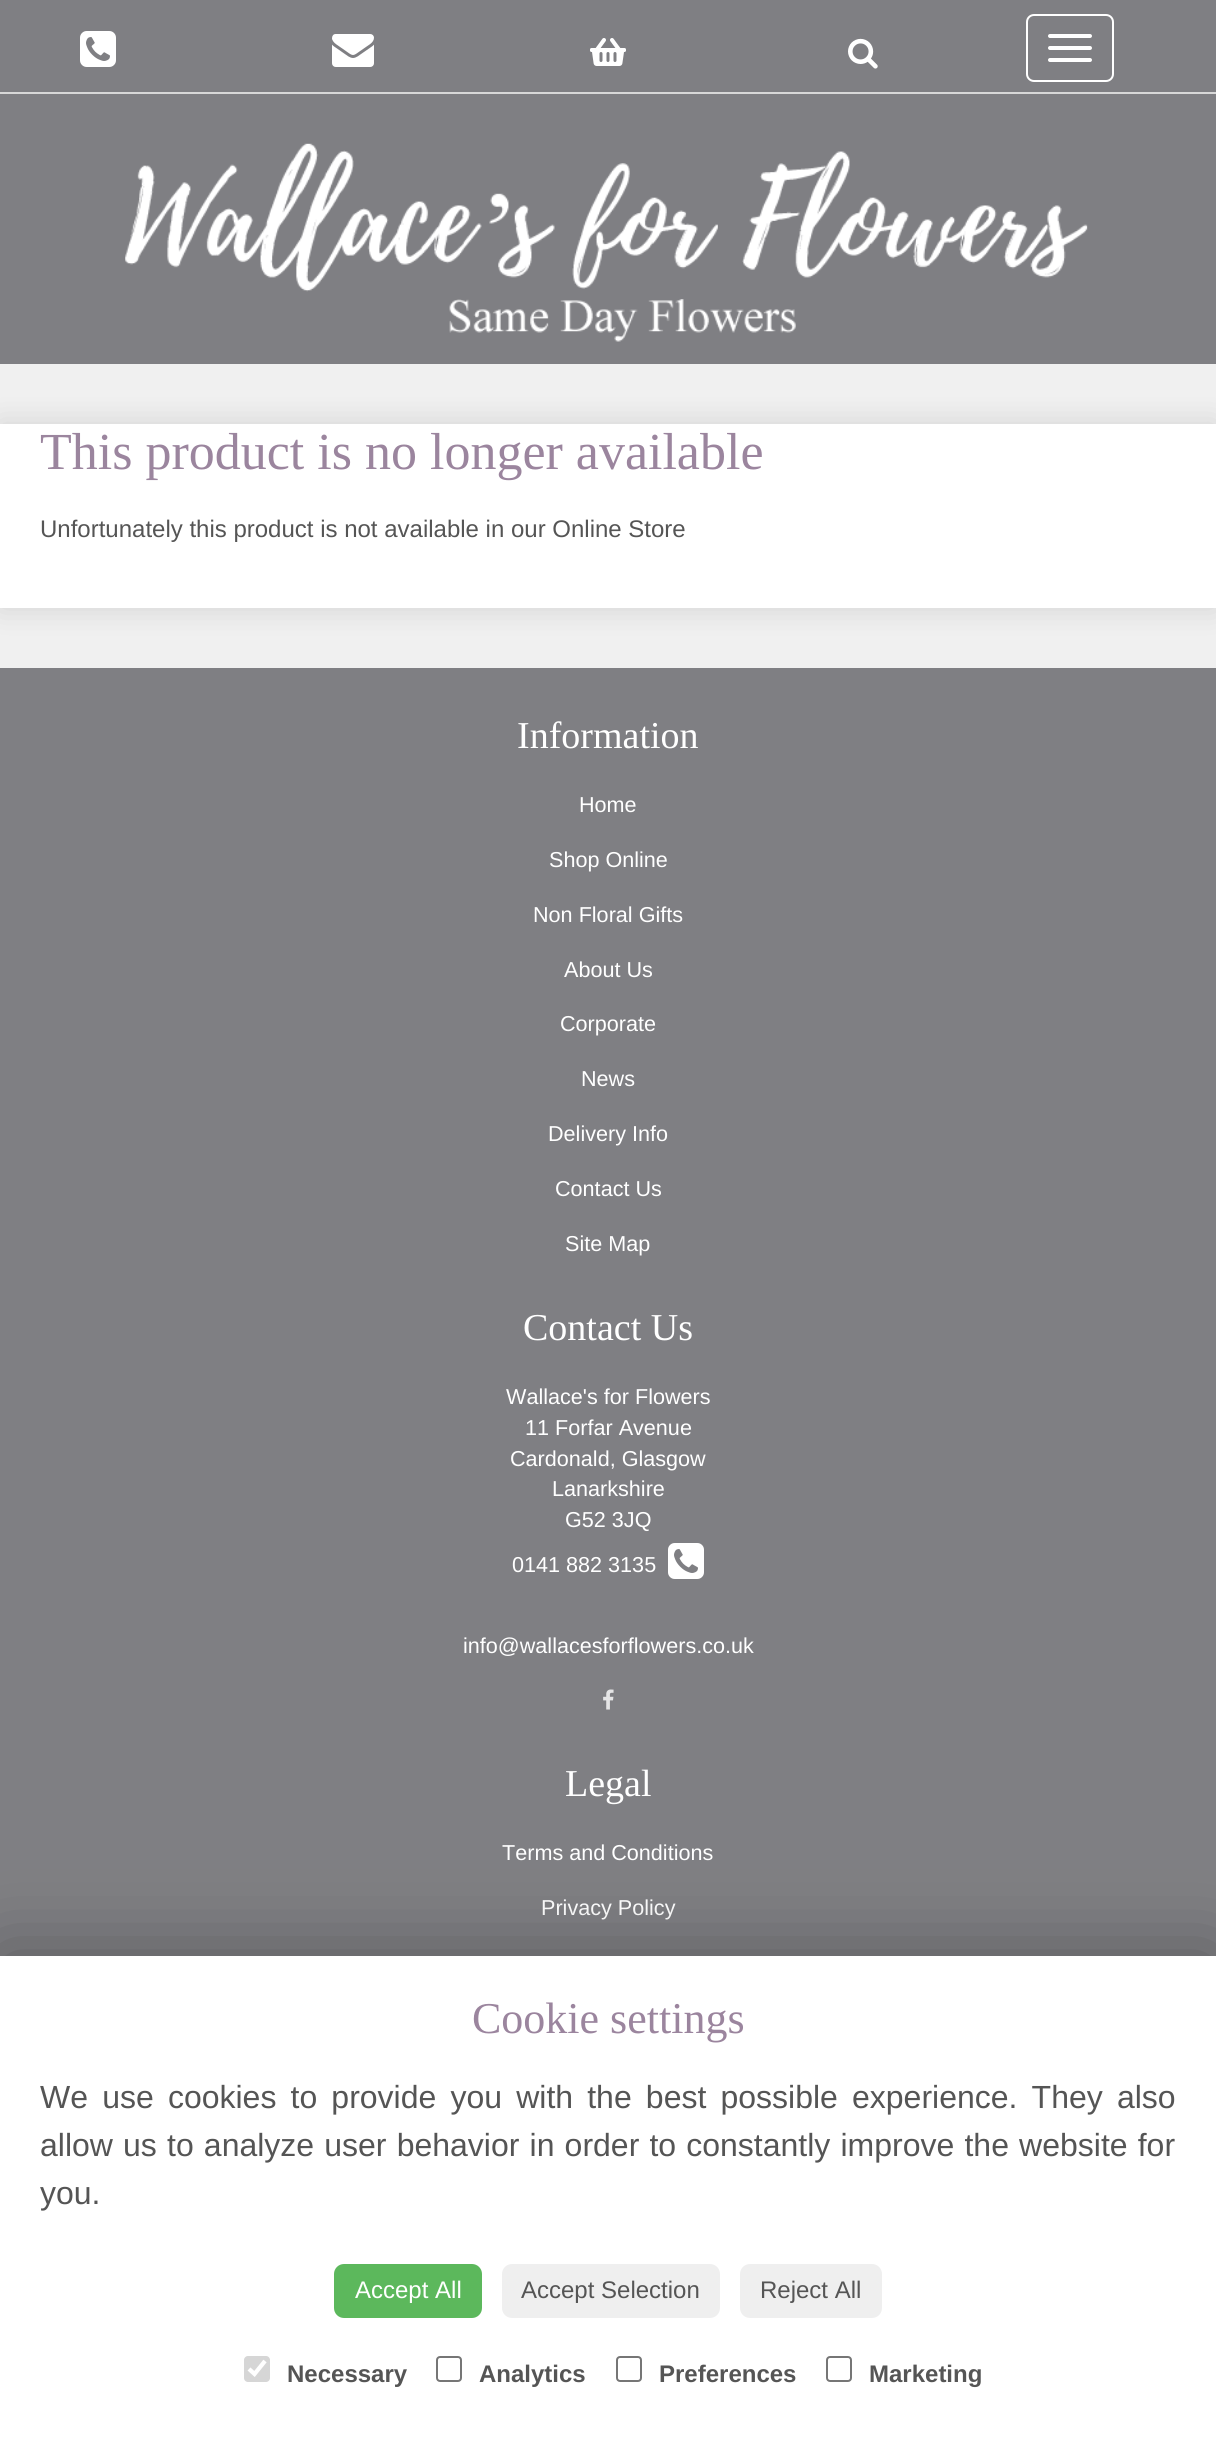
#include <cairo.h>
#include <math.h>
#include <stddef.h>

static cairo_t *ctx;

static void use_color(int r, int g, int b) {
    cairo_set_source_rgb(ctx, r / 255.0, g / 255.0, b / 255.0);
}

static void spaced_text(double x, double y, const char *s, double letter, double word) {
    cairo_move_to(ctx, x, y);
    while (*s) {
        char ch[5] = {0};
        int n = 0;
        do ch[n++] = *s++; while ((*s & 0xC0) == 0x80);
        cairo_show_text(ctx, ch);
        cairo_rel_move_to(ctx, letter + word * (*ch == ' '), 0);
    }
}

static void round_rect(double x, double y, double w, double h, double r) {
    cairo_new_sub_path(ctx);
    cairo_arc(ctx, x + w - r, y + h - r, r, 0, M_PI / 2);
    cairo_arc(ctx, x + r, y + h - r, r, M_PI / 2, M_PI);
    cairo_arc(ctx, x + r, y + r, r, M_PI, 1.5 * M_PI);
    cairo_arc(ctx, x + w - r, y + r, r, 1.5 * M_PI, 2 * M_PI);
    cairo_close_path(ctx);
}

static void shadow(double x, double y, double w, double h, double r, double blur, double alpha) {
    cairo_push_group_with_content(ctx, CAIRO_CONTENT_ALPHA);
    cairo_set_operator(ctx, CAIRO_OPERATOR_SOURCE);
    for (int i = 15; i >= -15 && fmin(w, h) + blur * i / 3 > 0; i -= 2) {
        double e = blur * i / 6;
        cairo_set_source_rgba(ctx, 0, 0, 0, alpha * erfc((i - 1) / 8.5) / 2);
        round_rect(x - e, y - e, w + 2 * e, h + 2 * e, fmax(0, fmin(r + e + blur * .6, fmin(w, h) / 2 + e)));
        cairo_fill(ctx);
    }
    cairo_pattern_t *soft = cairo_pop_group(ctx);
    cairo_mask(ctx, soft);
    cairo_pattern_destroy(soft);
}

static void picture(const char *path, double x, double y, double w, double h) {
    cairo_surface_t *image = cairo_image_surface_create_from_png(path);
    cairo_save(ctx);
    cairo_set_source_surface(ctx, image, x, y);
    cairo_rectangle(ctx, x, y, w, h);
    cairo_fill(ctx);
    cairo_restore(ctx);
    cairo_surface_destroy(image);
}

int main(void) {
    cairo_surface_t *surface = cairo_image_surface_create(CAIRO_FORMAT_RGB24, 1216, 2442);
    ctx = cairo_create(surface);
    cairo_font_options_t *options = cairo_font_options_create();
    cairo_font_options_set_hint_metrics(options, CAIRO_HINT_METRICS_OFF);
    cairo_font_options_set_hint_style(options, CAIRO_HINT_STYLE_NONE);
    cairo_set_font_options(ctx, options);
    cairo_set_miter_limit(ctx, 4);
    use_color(240, 240, 240);
    cairo_paint(ctx);
    use_color(216, 216, 216);
    cairo_rectangle(ctx, 0, 92, 1216, 2);
    cairo_fill(ctx);
    use_color(127, 127, 131);
    cairo_rectangle(ctx, 0, 0, 1216, 92);
    cairo_fill(ctx);
    picture("img1.png", 80, 31, 36, 36);
    picture("img2.png", 332, 34, 42, 33);
    picture("img3.png", 590, 38, 36, 28);
    picture("img4.png", 848, 38, 30, 31);
    round_rect(1027, 15, 86, 66, 7);
    use_color(255, 255, 255);
    cairo_stroke(ctx);
    round_rect(1048, 34, 44, 4, 2);
    cairo_fill(ctx);
    round_rect(1048, 46, 44, 4, 2);
    cairo_fill(ctx);
    round_rect(1048, 58, 44, 4, 2);
    cairo_fill(ctx);
    use_color(127, 127, 131);
    cairo_rectangle(ctx, 0, 94, 1216, 270);
    cairo_fill(ctx);
    picture("img5.png", 125, 143, 963, 199);
    use_color(0, 0, 0);
    shadow(0, 424, 1216, 184, 0, 15, 0.13);
    use_color(255, 255, 255);
    cairo_rectangle(ctx, 0, 424, 1216, 184);
    cairo_fill(ctx);
    cairo_select_font_face(ctx, "Liberation Serif", CAIRO_FONT_SLANT_NORMAL, CAIRO_FONT_WEIGHT_NORMAL);
    cairo_set_font_size(ctx, 52);
    use_color(155, 133, 158);
    cairo_move_to(ctx, 40, 469);
    cairo_show_text(ctx, "This product is no longer available");
    cairo_select_font_face(ctx, "Liberation Sans", CAIRO_FONT_SLANT_NORMAL, CAIRO_FONT_WEIGHT_NORMAL);
    cairo_set_font_size(ctx, 24);
    use_color(85, 85, 85);
    cairo_move_to(ctx, 40, 537);
    cairo_show_text(ctx, "Unfortunately this product is not available in our Online Store");
    use_color(127, 127, 131);
    cairo_rectangle(ctx, 0, 668, 1216, 1288);
    cairo_fill(ctx);
    cairo_select_font_face(ctx, "Liberation Serif", CAIRO_FONT_SLANT_NORMAL, CAIRO_FONT_WEIGHT_NORMAL);
    cairo_set_font_size(ctx, 38);
    use_color(255, 255, 255);
    cairo_move_to(ctx, 517, 748);
    cairo_show_text(ctx, "Information");
    cairo_select_font_face(ctx, "Liberation Sans", CAIRO_FONT_SLANT_NORMAL, CAIRO_FONT_WEIGHT_NORMAL);
    cairo_set_font_size(ctx, 21.6);
    cairo_move_to(ctx, 579, 812);
    cairo_show_text(ctx, "Home");
    cairo_move_to(ctx, 549, 867);
    cairo_show_text(ctx, "Shop Online");
    cairo_move_to(ctx, 533, 922);
    cairo_show_text(ctx, "Non Floral Gifts");
    cairo_move_to(ctx, 564, 977);
    cairo_show_text(ctx, "About Us");
    cairo_move_to(ctx, 560, 1031);
    cairo_show_text(ctx, "Corporate");
    cairo_move_to(ctx, 581, 1086);
    cairo_show_text(ctx, "News");
    cairo_move_to(ctx, 548, 1141);
    cairo_show_text(ctx, "Delivery Info");
    cairo_move_to(ctx, 555, 1196);
    cairo_show_text(ctx, "Contact Us");
    cairo_move_to(ctx, 565, 1251);
    cairo_show_text(ctx, "Site Map");
    cairo_select_font_face(ctx, "Liberation Serif", CAIRO_FONT_SLANT_NORMAL, CAIRO_FONT_WEIGHT_NORMAL);
    cairo_set_font_size(ctx, 38);
    cairo_move_to(ctx, 523, 1340);
    cairo_show_text(ctx, "Contact Us");
    cairo_select_font_face(ctx, "Liberation Sans", CAIRO_FONT_SLANT_NORMAL, CAIRO_FONT_WEIGHT_NORMAL);
    cairo_set_font_size(ctx, 21.6);
    cairo_move_to(ctx, 506, 1404);
    cairo_show_text(ctx, "Wallace's for Flowers");
    cairo_move_to(ctx, 525, 1435);
    cairo_show_text(ctx, "11 Forfar Avenue");
    cairo_move_to(ctx, 510, 1466);
    cairo_show_text(ctx, "Cardonald, Glasgow");
    cairo_move_to(ctx, 552, 1496);
    cairo_show_text(ctx, "Lanarkshire");
    cairo_move_to(ctx, 565, 1527);
    cairo_show_text(ctx, "G52 3JQ");
    cairo_move_to(ctx, 512, 1572);
    cairo_show_text(ctx, "0141 882 3135");
    picture("img1.png", 668, 1543, 36, 36);
    cairo_move_to(ctx, 463, 1653);
    cairo_show_text(ctx, "info@wallacesforflowers.co.uk");
    picture("img6.png", 603, 1689, 11, 21);
    cairo_select_font_face(ctx, "Liberation Serif", CAIRO_FONT_SLANT_NORMAL, CAIRO_FONT_WEIGHT_NORMAL);
    cairo_set_font_size(ctx, 38);
    cairo_move_to(ctx, 565, 1796);
    cairo_show_text(ctx, "Legal");
    cairo_select_font_face(ctx, "Liberation Sans", CAIRO_FONT_SLANT_NORMAL, CAIRO_FONT_WEIGHT_NORMAL);
    cairo_set_font_size(ctx, 21.6);
    cairo_move_to(ctx, 502, 1860);
    cairo_show_text(ctx, "Terms and Conditions");
    cairo_move_to(ctx, 541, 1915);
    cairo_show_text(ctx, "Privacy Policy");
    use_color(0, 0, 0);
    shadow(0, 1956, 1216, 486, 0, 40, 0.31);
    use_color(255, 255, 255);
    cairo_rectangle(ctx, 0, 1956, 1216, 486);
    cairo_fill(ctx);
    cairo_select_font_face(ctx, "Liberation Serif", CAIRO_FONT_SLANT_NORMAL, CAIRO_FONT_WEIGHT_NORMAL);
    cairo_set_font_size(ctx, 44);
    use_color(155, 133, 158);
    cairo_move_to(ctx, 472, 2033);
    cairo_show_text(ctx, "Cookie settings");
    cairo_select_font_face(ctx, "Liberation Sans", CAIRO_FONT_SLANT_NORMAL, CAIRO_FONT_WEIGHT_NORMAL);
    cairo_set_font_size(ctx, 32);
    use_color(85, 85, 85);
    spaced_text(40, 2108, "We use cookies to provide you with the best possible experience. They also", 0, 5.25);
    spaced_text(40, 2156, "allow us to analyze user behavior in order to constantly improve the website for", 0, 1.25);
    cairo_move_to(ctx, 40, 2204);
    cairo_show_text(ctx, "you.");
    use_color(92, 184, 92);
    round_rect(334, 2264, 148, 54, 10);
    cairo_fill(ctx);
    cairo_set_font_size(ctx, 24);
    use_color(255, 255, 255);
    cairo_move_to(ctx, 355, 2298);
    cairo_show_text(ctx, "Accept All");
    use_color(239, 239, 239);
    round_rect(502, 2264, 218, 54, 10);
    cairo_fill(ctx);
    use_color(85, 85, 85);
    cairo_move_to(ctx, 521, 2298);
    cairo_show_text(ctx, "Accept Selection");
    use_color(239, 239, 239);
    round_rect(740, 2264, 142, 54, 10);
    cairo_fill(ctx);
    use_color(85, 85, 85);
    cairo_move_to(ctx, 760, 2298);
    cairo_show_text(ctx, "Reject All");
    use_color(214, 214, 214);
    round_rect(244, 2356, 26, 26, 4);
    cairo_fill(ctx);
    cairo_new_path(ctx);
    cairo_move_to(ctx, 249, 2369);
    cairo_line_to(ctx, 254.5, 2374);
    cairo_line_to(ctx, 265, 2361);
    use_color(255, 255, 255);
    cairo_set_line_width(ctx, 4.2);
    cairo_stroke(ctx);
    cairo_select_font_face(ctx, "Liberation Sans", CAIRO_FONT_SLANT_NORMAL, CAIRO_FONT_WEIGHT_BOLD);
    use_color(85, 85, 85);
    cairo_move_to(ctx, 287, 2382);
    cairo_show_text(ctx, "Necessary");
    round_rect(437, 2357, 24, 24, 3);
    use_color(118, 118, 118);
    cairo_set_line_width(ctx, 2);
    cairo_stroke(ctx);
    use_color(85, 85, 85);
    cairo_move_to(ctx, 479, 2382);
    cairo_show_text(ctx, "Analytics");
    round_rect(617, 2357, 24, 24, 3);
    use_color(118, 118, 118);
    cairo_stroke(ctx);
    use_color(85, 85, 85);
    cairo_move_to(ctx, 659, 2382);
    cairo_show_text(ctx, "Preferences");
    round_rect(827, 2357, 24, 24, 3);
    use_color(118, 118, 118);
    cairo_stroke(ctx);
    use_color(85, 85, 85);
    cairo_move_to(ctx, 869, 2382);
    cairo_show_text(ctx, "Marketing");
    cairo_surface_write_to_png(surface, "result.png");
    cairo_font_options_destroy(options);
    cairo_destroy(ctx);
    cairo_surface_destroy(surface);
    return 0;
}
